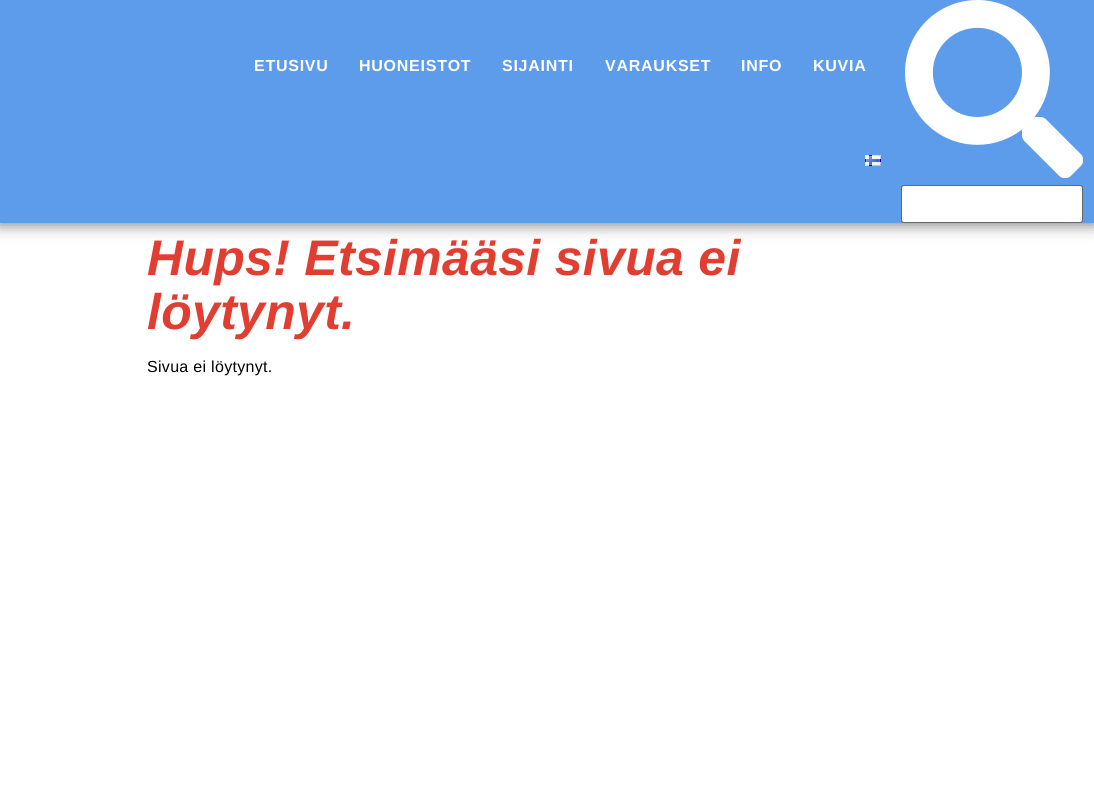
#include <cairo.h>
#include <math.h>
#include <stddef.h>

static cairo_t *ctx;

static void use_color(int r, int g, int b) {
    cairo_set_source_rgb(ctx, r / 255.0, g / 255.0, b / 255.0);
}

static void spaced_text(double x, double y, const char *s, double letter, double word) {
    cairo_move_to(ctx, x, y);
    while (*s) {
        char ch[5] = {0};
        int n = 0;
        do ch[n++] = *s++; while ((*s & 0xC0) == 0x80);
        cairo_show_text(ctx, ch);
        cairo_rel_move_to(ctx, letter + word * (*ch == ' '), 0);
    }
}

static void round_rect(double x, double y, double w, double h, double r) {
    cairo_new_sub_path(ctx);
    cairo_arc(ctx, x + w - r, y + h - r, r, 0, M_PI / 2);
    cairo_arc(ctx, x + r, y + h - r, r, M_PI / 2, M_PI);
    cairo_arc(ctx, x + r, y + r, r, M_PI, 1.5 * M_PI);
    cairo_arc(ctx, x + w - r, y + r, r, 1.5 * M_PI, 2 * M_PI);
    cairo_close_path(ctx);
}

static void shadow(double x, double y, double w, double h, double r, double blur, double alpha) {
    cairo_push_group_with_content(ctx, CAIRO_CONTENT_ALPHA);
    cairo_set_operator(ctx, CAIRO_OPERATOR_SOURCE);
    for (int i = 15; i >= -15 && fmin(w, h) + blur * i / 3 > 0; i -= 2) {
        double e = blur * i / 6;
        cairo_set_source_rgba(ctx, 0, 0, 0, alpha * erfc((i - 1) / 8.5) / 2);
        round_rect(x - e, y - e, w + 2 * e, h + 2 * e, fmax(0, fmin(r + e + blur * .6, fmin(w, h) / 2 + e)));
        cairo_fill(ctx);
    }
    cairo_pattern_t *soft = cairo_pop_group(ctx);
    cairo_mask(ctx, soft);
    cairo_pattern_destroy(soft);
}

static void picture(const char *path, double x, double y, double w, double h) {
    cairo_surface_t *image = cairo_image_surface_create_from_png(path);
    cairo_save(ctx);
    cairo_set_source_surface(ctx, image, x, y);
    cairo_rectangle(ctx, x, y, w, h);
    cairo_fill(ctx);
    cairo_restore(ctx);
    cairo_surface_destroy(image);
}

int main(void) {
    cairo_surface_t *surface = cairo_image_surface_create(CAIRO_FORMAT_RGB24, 1094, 802);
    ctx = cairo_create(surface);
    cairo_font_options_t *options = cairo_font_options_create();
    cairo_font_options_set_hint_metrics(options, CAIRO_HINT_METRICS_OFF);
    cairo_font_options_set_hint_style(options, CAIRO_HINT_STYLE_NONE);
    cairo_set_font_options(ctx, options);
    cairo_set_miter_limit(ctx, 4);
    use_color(255, 255, 255);
    cairo_paint(ctx);
    use_color(0, 0, 0);
    shadow(-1, 0, 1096, 225, 0, 7.5, 0.5);
    use_color(93, 155, 235);
    cairo_rectangle(ctx, 0, 0, 1094, 223);
    cairo_fill(ctx);
    cairo_select_font_face(ctx, "Liberation Sans", CAIRO_FONT_SLANT_NORMAL, CAIRO_FONT_WEIGHT_BOLD);
    cairo_set_font_size(ctx, 16);
    use_color(255, 255, 255);
    spaced_text(254, 71, "ETUSIVU", 0.75, 0);
    spaced_text(359, 71, "HUONEISTOT", 0.75, 0);
    spaced_text(502, 71, "SIJAINTI", 0.75, 0);
    spaced_text(605, 71, "VARAUKSET", 0.75, 0);
    spaced_text(741, 71, "INFO", 0.75, 0);
    spaced_text(813, 71, "KUVIA", 0.75, 0);
    picture("img1.png", 865, 155, 16, 11);
    picture("img2.png", 905, 0, 178, 178);
    round_rect(901.5, 185.5, 181, 37, 2.5);
    cairo_fill_preserve(ctx);
    use_color(102, 102, 102);
    cairo_set_line_width(ctx, 1);
    cairo_stroke(ctx);
    cairo_select_font_face(ctx, "Liberation Sans", CAIRO_FONT_SLANT_ITALIC, CAIRO_FONT_WEIGHT_BOLD);
    cairo_set_font_size(ctx, 50);
    use_color(226, 61, 49);
    spaced_text(147, 275, "Hups! Etsimääsi sivua ei", 0.3, 0);
    spaced_text(147, 329, "löytynyt.", 0.3, 0);
    cairo_select_font_face(ctx, "Liberation Sans", CAIRO_FONT_SLANT_NORMAL, CAIRO_FONT_WEIGHT_NORMAL);
    cairo_set_font_size(ctx, 16);
    use_color(0, 0, 0);
    spaced_text(147, 372, "Sivua ei löytynyt.", 0.3, 0);
    cairo_surface_write_to_png(surface, "result.png");
    cairo_font_options_destroy(options);
    cairo_destroy(ctx);
    cairo_surface_destroy(surface);
    return 0;
}
